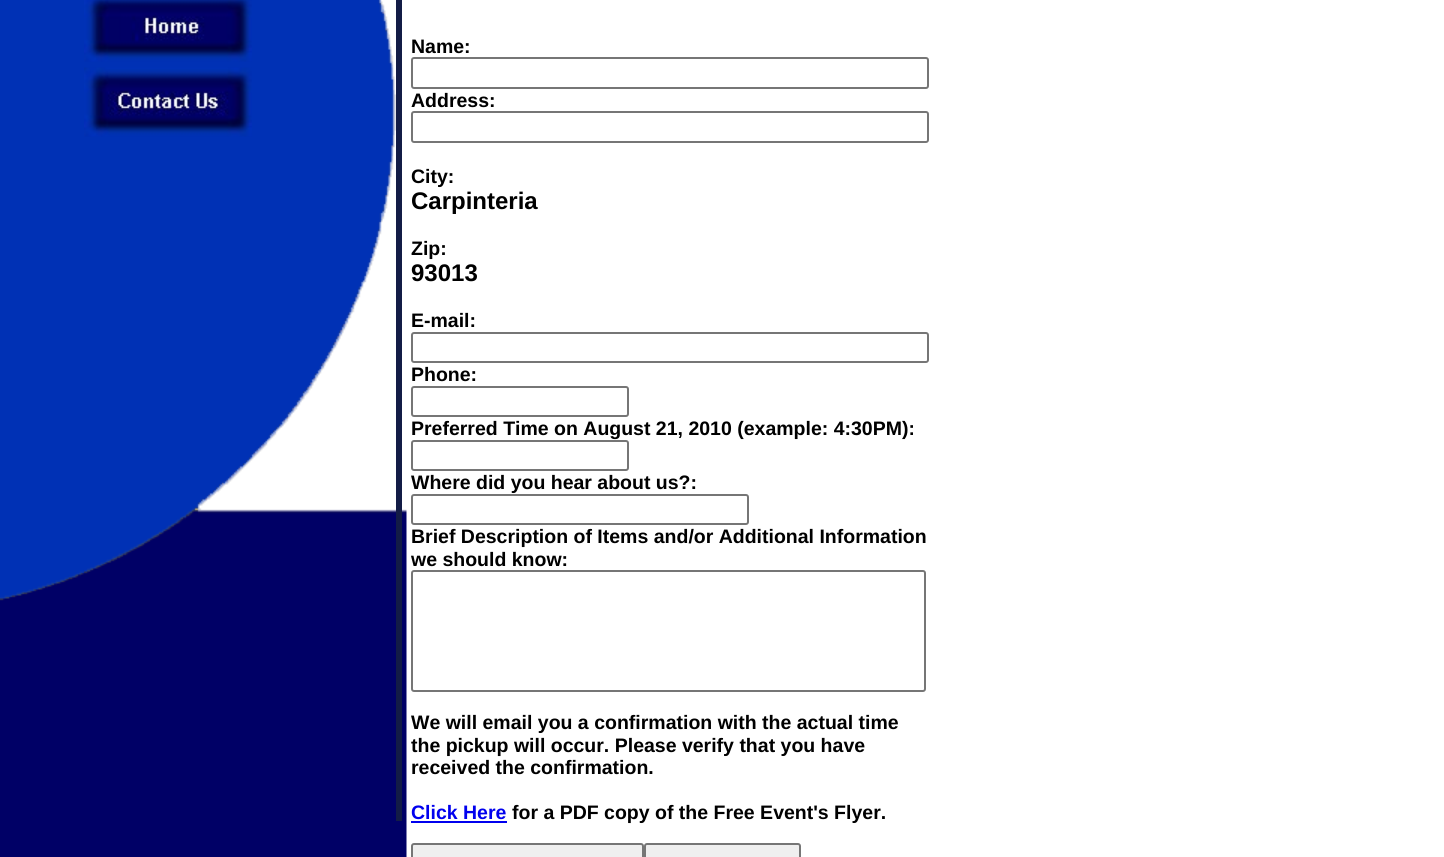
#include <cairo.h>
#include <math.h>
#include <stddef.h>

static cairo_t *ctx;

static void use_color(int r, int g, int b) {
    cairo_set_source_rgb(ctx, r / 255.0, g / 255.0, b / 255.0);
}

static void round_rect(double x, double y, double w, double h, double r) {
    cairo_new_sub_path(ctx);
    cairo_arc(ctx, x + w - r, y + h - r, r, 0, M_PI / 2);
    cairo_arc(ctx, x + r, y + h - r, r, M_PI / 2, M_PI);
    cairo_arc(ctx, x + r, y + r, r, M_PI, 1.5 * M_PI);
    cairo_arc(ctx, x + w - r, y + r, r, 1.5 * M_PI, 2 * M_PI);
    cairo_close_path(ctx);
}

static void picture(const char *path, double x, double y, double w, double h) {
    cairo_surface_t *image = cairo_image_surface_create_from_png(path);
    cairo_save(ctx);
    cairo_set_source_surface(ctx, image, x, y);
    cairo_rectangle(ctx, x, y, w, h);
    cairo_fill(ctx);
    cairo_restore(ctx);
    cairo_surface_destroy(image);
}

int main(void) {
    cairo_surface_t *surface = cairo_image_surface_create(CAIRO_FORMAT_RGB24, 1444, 857);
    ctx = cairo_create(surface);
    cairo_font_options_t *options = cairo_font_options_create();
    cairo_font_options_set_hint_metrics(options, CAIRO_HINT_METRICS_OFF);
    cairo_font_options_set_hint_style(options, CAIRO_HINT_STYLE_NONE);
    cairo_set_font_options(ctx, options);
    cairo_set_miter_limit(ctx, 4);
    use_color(255, 255, 255);
    cairo_paint(ctx);
    picture("img1.png", 0, 0, 407, 857);
    picture("img2.png", 84, 0, 168, 62);
    picture("img3.png", 84, 67, 168, 70);
    use_color(19, 28, 70);
    cairo_rectangle(ctx, 396, 0, 6, 821);
    cairo_fill(ctx);
    cairo_select_font_face(ctx, "Liberation Sans", CAIRO_FONT_SLANT_NORMAL, CAIRO_FONT_WEIGHT_BOLD);
    cairo_set_font_size(ctx, 19.5);
    use_color(0, 0, 0);
    cairo_move_to(ctx, 411, 53);
    cairo_show_text(ctx, "Name:");
    round_rect(412, 58, 516, 30, 2);
    use_color(118, 118, 118);
    cairo_stroke(ctx);
    use_color(0, 0, 0);
    cairo_move_to(ctx, 411, 107);
    cairo_show_text(ctx, "Address:");
    round_rect(412, 112, 516, 30, 2);
    use_color(118, 118, 118);
    cairo_stroke(ctx);
    use_color(0, 0, 0);
    cairo_move_to(ctx, 411, 183);
    cairo_show_text(ctx, "City:");
    cairo_set_font_size(ctx, 24);
    cairo_move_to(ctx, 411, 209);
    cairo_show_text(ctx, "Carpinteria");
    cairo_set_font_size(ctx, 19.5);
    cairo_move_to(ctx, 411, 255);
    cairo_show_text(ctx, "Zip:");
    cairo_set_font_size(ctx, 24);
    cairo_move_to(ctx, 411, 281);
    cairo_show_text(ctx, "93013");
    cairo_set_font_size(ctx, 19.5);
    cairo_move_to(ctx, 411, 327);
    cairo_show_text(ctx, "E-mail:");
    round_rect(412, 333, 516, 29, 2);
    use_color(118, 118, 118);
    cairo_stroke(ctx);
    use_color(0, 0, 0);
    cairo_move_to(ctx, 411, 381);
    cairo_show_text(ctx, "Phone:");
    round_rect(412, 387, 216, 29, 2);
    use_color(118, 118, 118);
    cairo_stroke(ctx);
    use_color(0, 0, 0);
    cairo_move_to(ctx, 411, 435);
    cairo_show_text(ctx, "Preferred Time on August 21, 2010 (example: 4:30PM):");
    round_rect(412, 441, 216, 29, 2);
    use_color(118, 118, 118);
    cairo_stroke(ctx);
    use_color(0, 0, 0);
    cairo_move_to(ctx, 411, 489);
    cairo_show_text(ctx, "Where did you hear about us?:");
    round_rect(412, 495, 336, 29, 2);
    use_color(118, 118, 118);
    cairo_stroke(ctx);
    use_color(0, 0, 0);
    cairo_move_to(ctx, 411, 543);
    cairo_show_text(ctx, "Brief Description of Items and/or Additional Information");
    cairo_move_to(ctx, 411, 566);
    cairo_show_text(ctx, "we should know:");
    round_rect(412, 571, 513, 120, 2);
    use_color(118, 118, 118);
    cairo_stroke(ctx);
    use_color(0, 0, 0);
    cairo_move_to(ctx, 411, 729);
    cairo_show_text(ctx, "We will email you a confirmation with the actual time");
    cairo_move_to(ctx, 411, 752);
    cairo_show_text(ctx, "the pickup will occur. Please verify that you have");
    cairo_move_to(ctx, 411, 774);
    cairo_show_text(ctx, "received the confirmation.");
    use_color(0, 0, 238);
    cairo_move_to(ctx, 411, 819);
    cairo_show_text(ctx, "Click Here");
    cairo_rectangle(ctx, 411, 821, 96, 2);
    cairo_fill(ctx);
    use_color(0, 0, 0);
    cairo_move_to(ctx, 512, 819);
    cairo_show_text(ctx, "for a PDF copy of the Free Event's Flyer.");
    use_color(239, 239, 239);
    round_rect(412, 844, 231, 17, 2);
    cairo_fill_preserve(ctx);
    use_color(118, 118, 118);
    cairo_stroke(ctx);
    use_color(239, 239, 239);
    round_rect(645, 844, 155, 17, 2);
    cairo_fill_preserve(ctx);
    use_color(118, 118, 118);
    cairo_stroke(ctx);
    cairo_surface_write_to_png(surface, "result.png");
    cairo_font_options_destroy(options);
    cairo_destroy(ctx);
    cairo_surface_destroy(surface);
    return 0;
}
